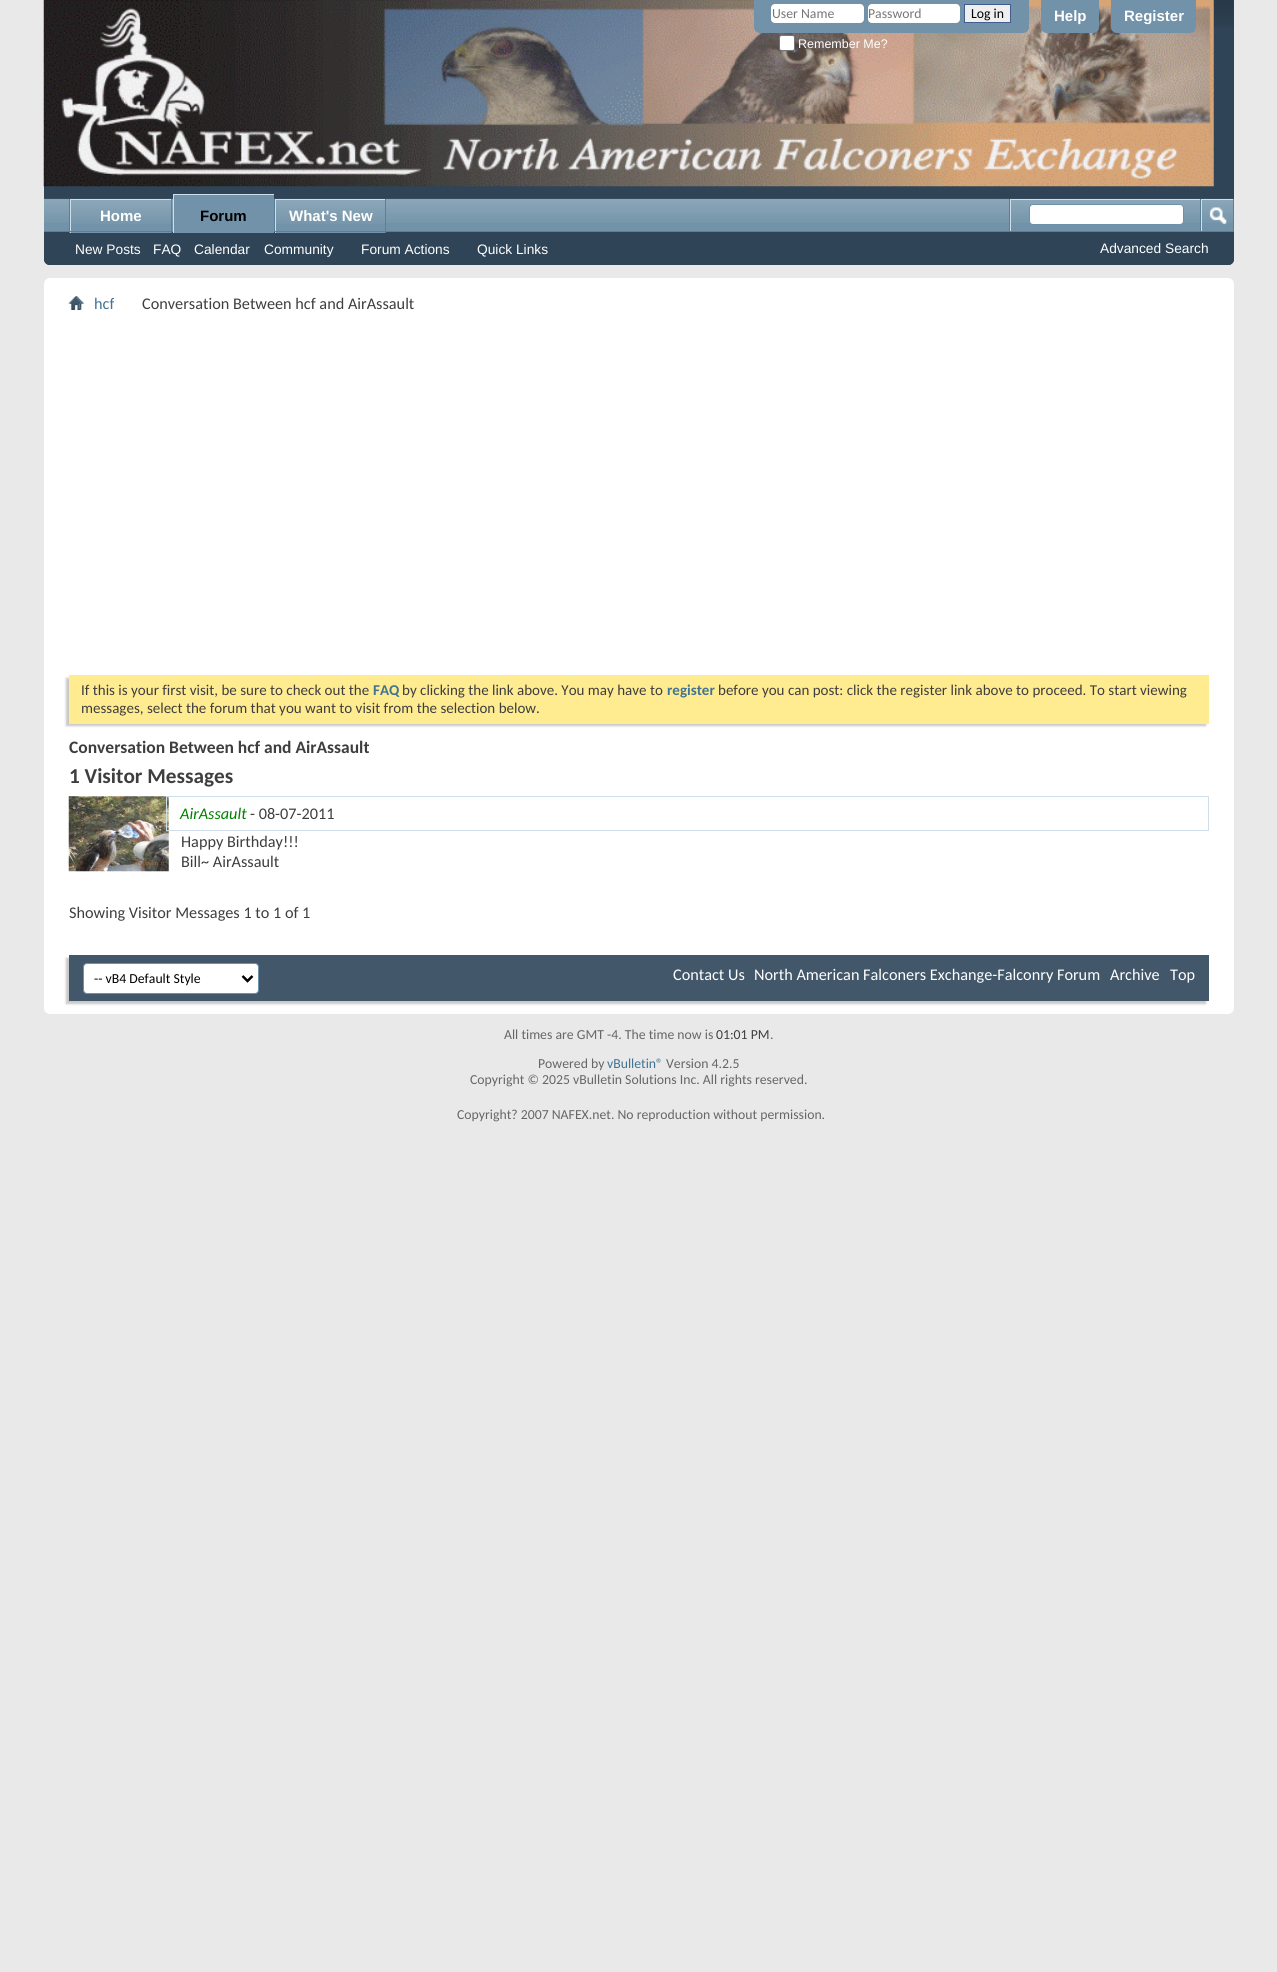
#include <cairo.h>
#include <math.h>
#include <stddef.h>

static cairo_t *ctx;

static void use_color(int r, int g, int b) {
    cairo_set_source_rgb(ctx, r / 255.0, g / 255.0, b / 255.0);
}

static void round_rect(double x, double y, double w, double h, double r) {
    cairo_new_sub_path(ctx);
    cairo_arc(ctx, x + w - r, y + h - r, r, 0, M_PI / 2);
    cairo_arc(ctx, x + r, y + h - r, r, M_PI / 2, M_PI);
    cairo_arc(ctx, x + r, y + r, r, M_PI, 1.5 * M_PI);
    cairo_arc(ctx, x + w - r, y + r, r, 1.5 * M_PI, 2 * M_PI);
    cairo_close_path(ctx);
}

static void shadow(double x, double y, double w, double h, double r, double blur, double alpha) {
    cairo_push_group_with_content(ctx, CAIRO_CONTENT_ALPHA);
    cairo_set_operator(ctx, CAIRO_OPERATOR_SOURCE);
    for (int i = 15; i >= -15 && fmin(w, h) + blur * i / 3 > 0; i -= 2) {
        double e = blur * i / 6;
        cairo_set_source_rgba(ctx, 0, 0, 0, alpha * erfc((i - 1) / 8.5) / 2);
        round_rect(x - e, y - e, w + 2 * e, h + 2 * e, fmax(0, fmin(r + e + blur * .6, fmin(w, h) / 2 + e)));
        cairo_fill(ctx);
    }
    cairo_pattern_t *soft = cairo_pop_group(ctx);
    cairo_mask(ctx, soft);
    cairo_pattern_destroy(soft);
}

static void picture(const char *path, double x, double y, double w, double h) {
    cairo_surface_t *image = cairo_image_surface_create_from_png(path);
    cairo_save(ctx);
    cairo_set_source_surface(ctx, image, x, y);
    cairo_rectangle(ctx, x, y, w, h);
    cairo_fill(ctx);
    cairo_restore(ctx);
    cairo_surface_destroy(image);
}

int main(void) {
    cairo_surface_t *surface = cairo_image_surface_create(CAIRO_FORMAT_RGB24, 1277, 1972);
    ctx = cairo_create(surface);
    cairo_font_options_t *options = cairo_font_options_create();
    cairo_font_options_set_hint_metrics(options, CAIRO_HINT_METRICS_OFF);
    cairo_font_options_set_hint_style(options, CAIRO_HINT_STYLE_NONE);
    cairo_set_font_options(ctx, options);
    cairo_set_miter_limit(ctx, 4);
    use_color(233, 233, 233);
    cairo_paint(ctx);
    use_color(47, 68, 86);
    cairo_new_path(ctx);
    cairo_move_to(ctx, 44, 0);
    cairo_line_to(ctx, 1234, 0);
    cairo_line_to(ctx, 1234, 259);
    cairo_curve_to(ctx, 1234, 262.5, 1231.5, 265, 1228, 265);
    cairo_line_to(ctx, 50, 265);
    cairo_curve_to(ctx, 46.5, 265, 44, 262.5, 44, 259);
    cairo_close_path(ctx);
    cairo_fill(ctx);
    picture("img1.png", 1213, 0, 21, 27);
    picture("img2.png", 43, 0, 1171, 187);
    use_color(113, 146, 168);
    cairo_new_path(ctx);
    cairo_move_to(ctx, 754, 0);
    cairo_line_to(ctx, 1029, 0);
    cairo_line_to(ctx, 1029, 27);
    cairo_curve_to(ctx, 1029, 30.5, 1026.5, 33, 1023, 33);
    cairo_line_to(ctx, 760, 33);
    cairo_curve_to(ctx, 756.5, 33, 754, 30.5, 754, 27);
    cairo_close_path(ctx);
    cairo_fill(ctx);
    use_color(255, 255, 255);
    round_rect(771, 4, 93, 19, 4);
    cairo_fill(ctx);
    cairo_select_font_face(ctx, "Carlito", CAIRO_FONT_SLANT_NORMAL, CAIRO_FONT_WEIGHT_NORMAL);
    cairo_set_font_size(ctx, 13.75);
    use_color(119, 119, 119);
    cairo_move_to(ctx, 772, 18);
    cairo_show_text(ctx, "User Name");
    use_color(255, 255, 255);
    round_rect(868, 4, 92, 19, 4);
    cairo_fill(ctx);
    use_color(119, 119, 119);
    cairo_move_to(ctx, 868, 18);
    cairo_show_text(ctx, "Password");
    use_color(239, 239, 239);
    cairo_rectangle(ctx, 964.5, 4.5, 46, 18);
    cairo_fill_preserve(ctx);
    use_color(65, 93, 141);
    cairo_set_line_width(ctx, 1);
    cairo_stroke(ctx);
    use_color(0, 0, 0);
    cairo_move_to(ctx, 971, 18);
    cairo_show_text(ctx, "Log in");
    use_color(255, 255, 255);
    round_rect(779.5, 35.5, 15, 15, 2);
    cairo_fill_preserve(ctx);
    use_color(118, 118, 118);
    cairo_stroke(ctx);
    cairo_select_font_face(ctx, "Liberation Sans", CAIRO_FONT_SLANT_NORMAL, CAIRO_FONT_WEIGHT_NORMAL);
    cairo_set_font_size(ctx, 12.5);
    use_color(255, 255, 255);
    cairo_move_to(ctx, 798, 48);
    cairo_show_text(ctx, "Remember Me?");
    use_color(113, 146, 168);
    cairo_new_path(ctx);
    cairo_move_to(ctx, 1041, 0);
    cairo_line_to(ctx, 1099, 0);
    cairo_line_to(ctx, 1099, 27);
    cairo_curve_to(ctx, 1099, 30.5, 1096.5, 33, 1093, 33);
    cairo_line_to(ctx, 1047, 33);
    cairo_curve_to(ctx, 1043.5, 33, 1041, 30.5, 1041, 27);
    cairo_close_path(ctx);
    cairo_fill(ctx);
    cairo_select_font_face(ctx, "Liberation Sans", CAIRO_FONT_SLANT_NORMAL, CAIRO_FONT_WEIGHT_BOLD);
    cairo_set_font_size(ctx, 15);
    use_color(255, 255, 255);
    cairo_move_to(ctx, 1054, 21);
    cairo_show_text(ctx, "Help");
    use_color(113, 146, 168);
    cairo_new_path(ctx);
    cairo_move_to(ctx, 1111, 0);
    cairo_line_to(ctx, 1196, 0);
    cairo_line_to(ctx, 1196, 27);
    cairo_curve_to(ctx, 1196, 30.5, 1193.5, 33, 1190, 33);
    cairo_line_to(ctx, 1117, 33);
    cairo_curve_to(ctx, 1113.5, 33, 1111, 30.5, 1111, 27);
    cairo_close_path(ctx);
    cairo_fill(ctx);
    use_color(255, 255, 255);
    cairo_move_to(ctx, 1124, 21);
    cairo_show_text(ctx, "Register");
    use_color(47, 68, 86);
    cairo_new_path(ctx);
    cairo_move_to(ctx, 44, 199);
    cairo_line_to(ctx, 1234, 199);
    cairo_line_to(ctx, 1234, 259);
    cairo_curve_to(ctx, 1234, 262.5, 1231.5, 265, 1228, 265);
    cairo_line_to(ctx, 50, 265);
    cairo_curve_to(ctx, 46.5, 265, 44, 262.5, 44, 259);
    cairo_close_path(ctx);
    cairo_fill(ctx);
    use_color(113, 146, 168);
    cairo_rectangle(ctx, 44, 199, 1189, 32);
    cairo_fill(ctx);
    picture("img3.png", 44, 198, 1190, 25);
    use_color(90, 127, 151);
    cairo_rectangle(ctx, 171, 199, 1, 34);
    cairo_fill(ctx);
    cairo_rectangle(ctx, 69, 199, 1, 34);
    cairo_fill(ctx);
    use_color(113, 146, 168);
    cairo_rectangle(ctx, 71, 200, 100, 33);
    cairo_fill(ctx);
    picture("img4.png", 71, 200, 101, 24);
    use_color(206, 223, 235);
    cairo_rectangle(ctx, 70, 199, 101, 1);
    cairo_fill(ctx);
    cairo_rectangle(ctx, 70, 199, 1, 34);
    cairo_fill(ctx);
    use_color(255, 255, 255);
    cairo_move_to(ctx, 100, 221);
    cairo_show_text(ctx, "Home");
    use_color(90, 127, 151);
    cairo_rectangle(ctx, 274, 199, 1, 32);
    cairo_fill(ctx);
    cairo_rectangle(ctx, 385, 199, 1, 34);
    cairo_fill(ctx);
    use_color(113, 146, 168);
    cairo_rectangle(ctx, 276, 200, 109, 33);
    cairo_fill(ctx);
    use_color(206, 223, 235);
    cairo_rectangle(ctx, 275, 199, 110, 1);
    cairo_fill(ctx);
    cairo_rectangle(ctx, 275, 199, 1, 34);
    cairo_fill(ctx);
    use_color(90, 127, 151);
    cairo_rectangle(ctx, 44, 231, 1190, 1);
    cairo_fill(ctx);
    use_color(113, 146, 168);
    cairo_rectangle(ctx, 174, 195, 100, 38);
    cairo_fill(ctx);
    use_color(206, 223, 235);
    cairo_rectangle(ctx, 173, 194, 101, 1);
    cairo_fill(ctx);
    cairo_rectangle(ctx, 173, 194, 1, 39);
    cairo_fill(ctx);
    use_color(0, 0, 0);
    cairo_move_to(ctx, 200, 221);
    cairo_show_text(ctx, "Forum");
    picture("img5.png", 276, 200, 109, 24);
    use_color(255, 255, 255);
    cairo_move_to(ctx, 289, 221);
    cairo_show_text(ctx, "What's New");
    cairo_select_font_face(ctx, "Liberation Sans", CAIRO_FONT_SLANT_NORMAL, CAIRO_FONT_WEIGHT_NORMAL);
    cairo_set_font_size(ctx, 13.75);
    cairo_move_to(ctx, 75, 254);
    cairo_show_text(ctx, "New Posts");
    cairo_move_to(ctx, 153, 254);
    cairo_show_text(ctx, "FAQ");
    cairo_move_to(ctx, 194, 254);
    cairo_show_text(ctx, "Calendar");
    cairo_move_to(ctx, 264, 254);
    cairo_show_text(ctx, "Community");
    cairo_move_to(ctx, 361, 254);
    cairo_show_text(ctx, "Forum Actions");
    cairo_move_to(ctx, 477, 254);
    cairo_show_text(ctx, "Quick Links");
    use_color(90, 127, 151);
    cairo_rectangle(ctx, 1009, 199, 1, 32);
    cairo_fill(ctx);
    use_color(206, 223, 235);
    cairo_rectangle(ctx, 1010, 199, 190, 1);
    cairo_fill(ctx);
    cairo_rectangle(ctx, 1010, 199, 1, 32);
    cairo_fill(ctx);
    use_color(255, 255, 255);
    round_rect(1029.5, 204.5, 154, 20, 3.5);
    cairo_fill_preserve(ctx);
    use_color(107, 145, 171);
    cairo_stroke(ctx);
    use_color(90, 127, 151);
    cairo_rectangle(ctx, 1233, 199, 1, 32);
    cairo_fill(ctx);
    cairo_rectangle(ctx, 1200, 199, 1, 32);
    cairo_fill(ctx);
    use_color(206, 223, 235);
    cairo_rectangle(ctx, 1201, 199, 32, 1);
    cairo_fill(ctx);
    cairo_rectangle(ctx, 1201, 199, 1, 32);
    cairo_fill(ctx);
    picture("img6.png", 1209, 207, 18, 18);
    use_color(255, 255, 255);
    cairo_move_to(ctx, 1100, 253);
    cairo_show_text(ctx, "Advanced Search");
    round_rect(44, 278, 1190, 736, 6);
    cairo_fill(ctx);
    picture("img7.png", 68, 296, 16, 14);
    cairo_select_font_face(ctx, "Carlito", CAIRO_FONT_SLANT_NORMAL, CAIRO_FONT_WEIGHT_NORMAL);
    cairo_set_font_size(ctx, 16.25);
    use_color(65, 115, 148);
    cairo_move_to(ctx, 94, 309);
    cairo_show_text(ctx, "hcf");
    use_color(62, 62, 62);
    cairo_move_to(ctx, 142, 309);
    cairo_show_text(ctx, "Conversation Between hcf and AirAssault");
    use_color(200, 200, 200);
    shadow(66, 678, 1140, 48, 0, 1, 1);
    use_color(255, 235, 144);
    cairo_rectangle(ctx, 69, 675, 1140, 49);
    cairo_fill(ctx);
    cairo_set_font_size(ctx, 15);
    use_color(62, 62, 62);
    cairo_move_to(ctx, 81, 695);
    cairo_show_text(ctx, "If this is your first visit, be sure to check out the");
    cairo_select_font_face(ctx, "Carlito", CAIRO_FONT_SLANT_NORMAL, CAIRO_FONT_WEIGHT_BOLD);
    use_color(65, 115, 148);
    cairo_move_to(ctx, 373, 695);
    cairo_show_text(ctx, "FAQ");
    cairo_select_font_face(ctx, "Carlito", CAIRO_FONT_SLANT_NORMAL, CAIRO_FONT_WEIGHT_NORMAL);
    use_color(62, 62, 62);
    cairo_move_to(ctx, 402, 695);
    cairo_show_text(ctx, "by clicking the link above. You may have to");
    cairo_select_font_face(ctx, "Carlito", CAIRO_FONT_SLANT_NORMAL, CAIRO_FONT_WEIGHT_BOLD);
    use_color(65, 115, 148);
    cairo_move_to(ctx, 667, 695);
    cairo_show_text(ctx, "register");
    cairo_select_font_face(ctx, "Carlito", CAIRO_FONT_SLANT_NORMAL, CAIRO_FONT_WEIGHT_NORMAL);
    use_color(62, 62, 62);
    cairo_move_to(ctx, 718, 695);
    cairo_show_text(ctx, "before you can post: click the register link above to proceed. To start viewing");
    cairo_move_to(ctx, 81, 713);
    cairo_show_text(ctx, "messages, select the forum that you want to visit from the selection below.");
    cairo_select_font_face(ctx, "Carlito", CAIRO_FONT_SLANT_NORMAL, CAIRO_FONT_WEIGHT_BOLD);
    cairo_set_font_size(ctx, 17.5);
    cairo_move_to(ctx, 69, 753);
    cairo_show_text(ctx, "Conversation Between hcf and AirAssault");
    cairo_set_font_size(ctx, 21.25);
    cairo_move_to(ctx, 69, 783);
    cairo_show_text(ctx, "1 Visitor Messages");
    picture("img8.png", 68, 796, 101, 76);
    cairo_rectangle(ctx, 166.5, 796.5, 1042, 34);
    use_color(206, 223, 235);
    cairo_stroke(ctx);
    cairo_select_font_face(ctx, "Carlito", CAIRO_FONT_SLANT_ITALIC, CAIRO_FONT_WEIGHT_NORMAL);
    cairo_set_font_size(ctx, 16.25);
    use_color(0, 128, 0);
    cairo_move_to(ctx, 180, 819);
    cairo_show_text(ctx, "AirAssault");
    cairo_select_font_face(ctx, "Carlito", CAIRO_FONT_SLANT_NORMAL, CAIRO_FONT_WEIGHT_NORMAL);
    use_color(62, 62, 62);
    cairo_move_to(ctx, 250, 819);
    cairo_show_text(ctx, "- 08-07-2011");
    cairo_move_to(ctx, 181, 847);
    cairo_show_text(ctx, "Happy Birthday!!!");
    cairo_move_to(ctx, 181, 867);
    cairo_show_text(ctx, "Bill~ AirAssault");
    cairo_move_to(ctx, 69, 918);
    cairo_show_text(ctx, "Showing Visitor Messages 1 to 1 of 1");
    use_color(200, 200, 200);
    shadow(66, 958, 1140, 46, 0, 1, 1);
    use_color(66, 87, 105);
    cairo_rectangle(ctx, 69, 955, 1140, 46);
    cairo_fill(ctx);
    use_color(255, 255, 255);
    round_rect(83.5, 963.5, 175, 30, 3.5);
    cairo_fill_preserve(ctx);
    use_color(107, 145, 171);
    cairo_stroke(ctx);
    cairo_new_path(ctx);
    cairo_move_to(ctx, 242.5, 976);
    cairo_line_to(ctx, 247.5, 981);
    cairo_line_to(ctx, 252.5, 976);
    use_color(0, 0, 0);
    cairo_set_line_width(ctx, 2.5);
    cairo_stroke(ctx);
    cairo_set_font_size(ctx, 13.75);
    cairo_move_to(ctx, 94, 983);
    cairo_show_text(ctx, "-- vB4 Default Style");
    cairo_set_font_size(ctx, 16.25);
    use_color(255, 255, 255);
    cairo_move_to(ctx, 673, 980);
    cairo_show_text(ctx, "Contact Us");
    cairo_move_to(ctx, 754, 980);
    cairo_show_text(ctx, "North American Falconers Exchange-Falconry Forum");
    cairo_move_to(ctx, 1110, 980);
    cairo_show_text(ctx, "Archive");
    cairo_move_to(ctx, 1170, 980);
    cairo_show_text(ctx, "Top");
    cairo_set_font_size(ctx, 13.75);
    use_color(102, 102, 102);
    cairo_move_to(ctx, 504, 1039);
    cairo_show_text(ctx, "All times are GMT -4. The time now is");
    use_color(62, 62, 62);
    cairo_move_to(ctx, 716, 1039);
    cairo_show_text(ctx, "01:01 PM");
    use_color(102, 102, 102);
    cairo_move_to(ctx, 770, 1039);
    cairo_show_text(ctx, ".");
    cairo_move_to(ctx, 538, 1068);
    cairo_show_text(ctx, "Powered by");
    use_color(65, 115, 148);
    cairo_move_to(ctx, 607, 1068);
    cairo_show_text(ctx, "vBulletin®");
    use_color(102, 102, 102);
    cairo_move_to(ctx, 666, 1068);
    cairo_show_text(ctx, "Version 4.2.5");
    cairo_move_to(ctx, 470, 1084);
    cairo_show_text(ctx, "Copyright © 2025 vBulletin Solutions Inc. All rights reserved.");
    cairo_move_to(ctx, 457, 1119);
    cairo_show_text(ctx, "Copyright? 2007 NAFEX.net. No reproduction without permission.");
    cairo_surface_write_to_png(surface, "result.png");
    cairo_font_options_destroy(options);
    cairo_destroy(ctx);
    cairo_surface_destroy(surface);
    return 0;
}
